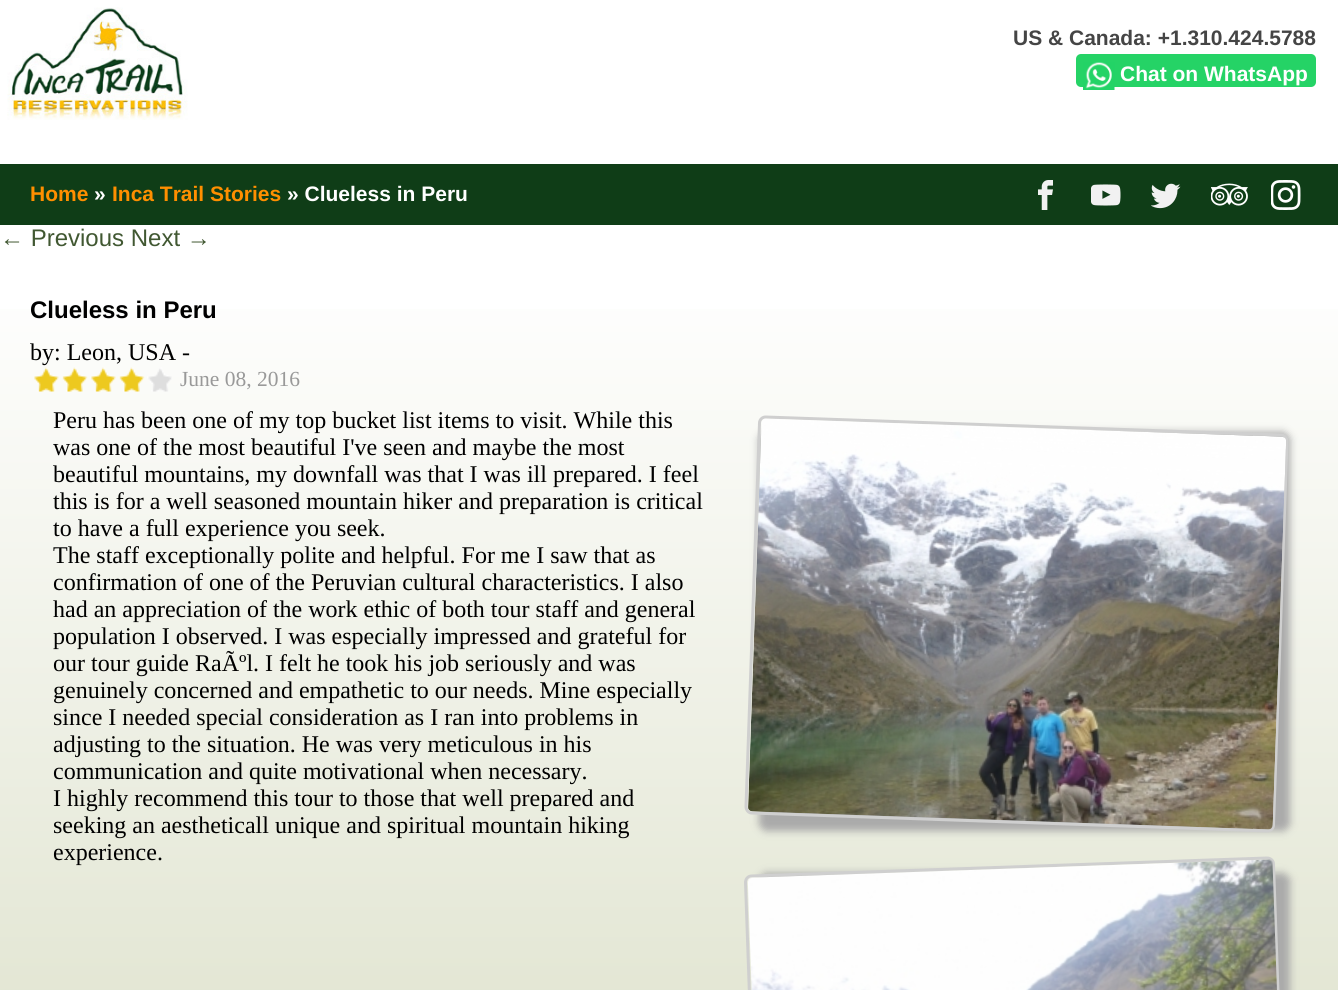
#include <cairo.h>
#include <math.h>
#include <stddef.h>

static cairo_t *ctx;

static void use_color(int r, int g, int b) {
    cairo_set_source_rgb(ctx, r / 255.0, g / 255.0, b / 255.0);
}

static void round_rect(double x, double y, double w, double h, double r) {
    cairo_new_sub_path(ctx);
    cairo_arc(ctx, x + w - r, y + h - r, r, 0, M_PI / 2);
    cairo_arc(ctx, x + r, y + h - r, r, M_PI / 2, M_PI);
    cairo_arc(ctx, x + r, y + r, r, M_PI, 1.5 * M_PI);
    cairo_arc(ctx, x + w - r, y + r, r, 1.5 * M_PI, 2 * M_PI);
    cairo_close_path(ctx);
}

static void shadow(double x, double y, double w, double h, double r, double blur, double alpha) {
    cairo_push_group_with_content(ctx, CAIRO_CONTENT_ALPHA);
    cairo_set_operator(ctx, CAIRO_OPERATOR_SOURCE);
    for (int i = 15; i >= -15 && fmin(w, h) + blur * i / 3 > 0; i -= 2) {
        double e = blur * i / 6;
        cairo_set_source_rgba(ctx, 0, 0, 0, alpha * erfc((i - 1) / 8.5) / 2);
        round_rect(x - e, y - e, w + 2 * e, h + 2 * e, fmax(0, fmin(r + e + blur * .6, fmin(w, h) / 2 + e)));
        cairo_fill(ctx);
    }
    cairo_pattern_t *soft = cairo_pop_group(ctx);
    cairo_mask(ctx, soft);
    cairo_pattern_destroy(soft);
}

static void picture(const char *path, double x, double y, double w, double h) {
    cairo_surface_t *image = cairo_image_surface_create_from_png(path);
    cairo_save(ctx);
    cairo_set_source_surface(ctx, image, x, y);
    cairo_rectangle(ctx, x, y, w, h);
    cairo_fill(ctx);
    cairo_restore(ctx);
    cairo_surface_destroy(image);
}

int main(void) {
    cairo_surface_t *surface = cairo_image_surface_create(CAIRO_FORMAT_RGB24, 1338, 990);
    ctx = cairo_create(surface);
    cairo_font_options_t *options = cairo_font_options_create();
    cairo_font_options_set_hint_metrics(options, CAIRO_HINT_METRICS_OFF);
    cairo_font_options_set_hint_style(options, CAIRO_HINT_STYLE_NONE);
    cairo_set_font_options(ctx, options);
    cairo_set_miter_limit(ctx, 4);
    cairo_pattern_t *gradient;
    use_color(255, 255, 255);
    cairo_paint(ctx);
    picture("img1.png", 7, 7, 181, 113);
    cairo_select_font_face(ctx, "Liberation Sans", CAIRO_FONT_SLANT_NORMAL, CAIRO_FONT_WEIGHT_BOLD);
    cairo_set_font_size(ctx, 21);
    use_color(69, 69, 69);
    cairo_move_to(ctx, 1013, 45);
    cairo_show_text(ctx, "US & Canada: +1.310.424.5788");
    use_color(37, 211, 102);
    round_rect(1076, 54, 240, 33, 5);
    cairo_fill(ctx);
    picture("img2.png", 1083, 62, 32, 28);
    use_color(255, 255, 255);
    cairo_move_to(ctx, 1120, 81);
    cairo_show_text(ctx, "Chat on WhatsApp");
    use_color(15, 61, 23);
    cairo_rectangle(ctx, 0, 164, 1338, 61);
    cairo_fill(ctx);
    use_color(255, 143, 0);
    cairo_move_to(ctx, 30, 201);
    cairo_show_text(ctx, "Home");
    use_color(255, 255, 255);
    cairo_move_to(ctx, 94, 201);
    cairo_show_text(ctx, "»");
    use_color(255, 143, 0);
    cairo_move_to(ctx, 112, 201);
    cairo_show_text(ctx, "Inca Trail Stories");
    use_color(255, 255, 255);
    cairo_move_to(ctx, 287, 201);
    cairo_show_text(ctx, "» Clueless in Peru");
    picture("img3.png", 1038, 180, 15, 30);
    picture("img4.png", 1091, 184, 30, 22);
    picture("img5.png", 1151, 183, 30, 26);
    picture("img6.png", 1211, 183, 37, 23);
    picture("img7.png", 1271, 180, 30, 30);
    cairo_select_font_face(ctx, "Liberation Sans", CAIRO_FONT_SLANT_NORMAL, CAIRO_FONT_WEIGHT_NORMAL);
    cairo_set_font_size(ctx, 24);
    use_color(65, 88, 50);
    cairo_move_to(ctx, 0, 246);
    cairo_show_text(ctx, "← Previous Next →");
    gradient = cairo_pattern_create_linear(669, 252, 669, 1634);
    cairo_pattern_add_color_stop_rgba(gradient, 0, 1, 1, 1, 1);
    cairo_pattern_add_color_stop_rgba(gradient, 0.01, 1, 1, 1, 1);
    cairo_pattern_add_color_stop_rgba(gradient, 1, 0.796, 0.82, 0.686, 1);
    cairo_set_source(ctx, gradient);
    cairo_pattern_destroy(gradient);
    cairo_rectangle(ctx, 0, 309, 1338, 681);
    cairo_fill(ctx);
    cairo_select_font_face(ctx, "Liberation Sans", CAIRO_FONT_SLANT_NORMAL, CAIRO_FONT_WEIGHT_BOLD);
    use_color(0, 0, 0);
    cairo_move_to(ctx, 30, 318);
    cairo_show_text(ctx, "Clueless in Peru");
    cairo_select_font_face(ctx, "Liberation Serif", CAIRO_FONT_SLANT_NORMAL, CAIRO_FONT_WEIGHT_NORMAL);
    cairo_move_to(ctx, 30, 360);
    cairo_show_text(ctx, "by: Leon, USA -");
    picture("img8.png", 34, 367, 138, 25);
    cairo_set_font_size(ctx, 21.5);
    use_color(153, 153, 153);
    cairo_move_to(ctx, 180, 386);
    cairo_show_text(ctx, "June 08, 2016");
    cairo_set_font_size(ctx, 24);
    use_color(0, 0, 0);
    cairo_move_to(ctx, 53, 428);
    cairo_show_text(ctx, "Peru has been one of my top bucket list items to visit. While this");
    cairo_move_to(ctx, 53, 455);
    cairo_show_text(ctx, "was one of the most beautiful I've seen and maybe the most");
    cairo_move_to(ctx, 53, 482);
    cairo_show_text(ctx, "beautiful mountains, my downfall was that I was ill prepared. I feel");
    cairo_move_to(ctx, 53, 509);
    cairo_show_text(ctx, "this is for a well seasoned mountain hiker and preparation is critical");
    cairo_move_to(ctx, 53, 536);
    cairo_show_text(ctx, "to have a full experience you seek.");
    cairo_move_to(ctx, 53, 563);
    cairo_show_text(ctx, "The staff exceptionally polite and helpful. For me I saw that as");
    cairo_move_to(ctx, 53, 590);
    cairo_show_text(ctx, "confirmation of one of the Peruvian cultural characteristics. I also");
    cairo_move_to(ctx, 53, 617);
    cairo_show_text(ctx, "had an appreciation of the work ethic of both tour staff and general");
    cairo_move_to(ctx, 53, 644);
    cairo_show_text(ctx, "population I observed. I was especially impressed and grateful for");
    cairo_move_to(ctx, 53, 671);
    cairo_show_text(ctx, "our tour guide RaÃºl. I felt he took his job seriously and was");
    cairo_move_to(ctx, 53, 698);
    cairo_show_text(ctx, "genuinely concerned and empathetic to our needs. Mine especially");
    cairo_move_to(ctx, 53, 725);
    cairo_show_text(ctx, "since I needed special consideration as I ran into problems in");
    cairo_move_to(ctx, 53, 752);
    cairo_show_text(ctx, "adjusting to the situation. He was very meticulous in his");
    cairo_move_to(ctx, 53, 779);
    cairo_show_text(ctx, "communication and quite motivational when necessary.");
    cairo_move_to(ctx, 53, 806);
    cairo_show_text(ctx, "I highly recommend this tour to those that well prepared and");
    cairo_move_to(ctx, 53, 833);
    cairo_show_text(ctx, "seeking an aestheticall unique and spiritual mountain hiking");
    cairo_move_to(ctx, 53, 860);
    cairo_show_text(ctx, "experience.");
    use_color(170, 170, 170);
    shadow(759, 432, 531, 399, 8, 4, 1);
    cairo_new_path(ctx);
    cairo_move_to(ctx, 765.5, 417);
    cairo_line_to(ctx, 1281, 435);
    cairo_curve_to(ctx, 1284.5, 435, 1287, 438, 1287, 441.5);
    cairo_line_to(ctx, 1273.5, 825);
    cairo_curve_to(ctx, 1273.5, 828.5, 1270.5, 831, 1267.5, 831);
    cairo_line_to(ctx, 751.5, 813);
    cairo_curve_to(ctx, 748.5, 813, 746, 810, 746, 806.5);
    cairo_line_to(ctx, 759.5, 423);
    cairo_curve_to(ctx, 759.5, 419.5, 762.5, 417, 765.5, 417);
    cairo_close_path(ctx);
    use_color(207, 207, 207);
    cairo_set_line_width(ctx, 3);
    cairo_stroke(ctx);
    picture("img9.png", 748, 418, 538, 412);
    use_color(170, 170, 170);
    shadow(759, 873, 531, 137, 8, 4, 1);
    cairo_new_path(ctx);
    cairo_move_to(ctx, 751.5, 876);
    cairo_line_to(ctx, 1267, 858);
    cairo_curve_to(ctx, 1270.5, 858, 1273.5, 860.5, 1273.5, 864);
    cairo_line_to(ctx, 1287, 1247.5);
    cairo_curve_to(ctx, 1287, 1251, 1284.5, 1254, 1281, 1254);
    cairo_line_to(ctx, 765.5, 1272);
    cairo_curve_to(ctx, 762, 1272, 759.5, 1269.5, 759, 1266);
    cairo_line_to(ctx, 745.5, 882.5);
    cairo_curve_to(ctx, 745.5, 879, 748, 876, 751.5, 876);
    cairo_close_path(ctx);
    use_color(207, 207, 207);
    cairo_stroke(ctx);
    picture("img10.png", 747, 859, 530, 131);
    cairo_surface_write_to_png(surface, "result.png");
    cairo_font_options_destroy(options);
    cairo_destroy(ctx);
    cairo_surface_destroy(surface);
    return 0;
}
